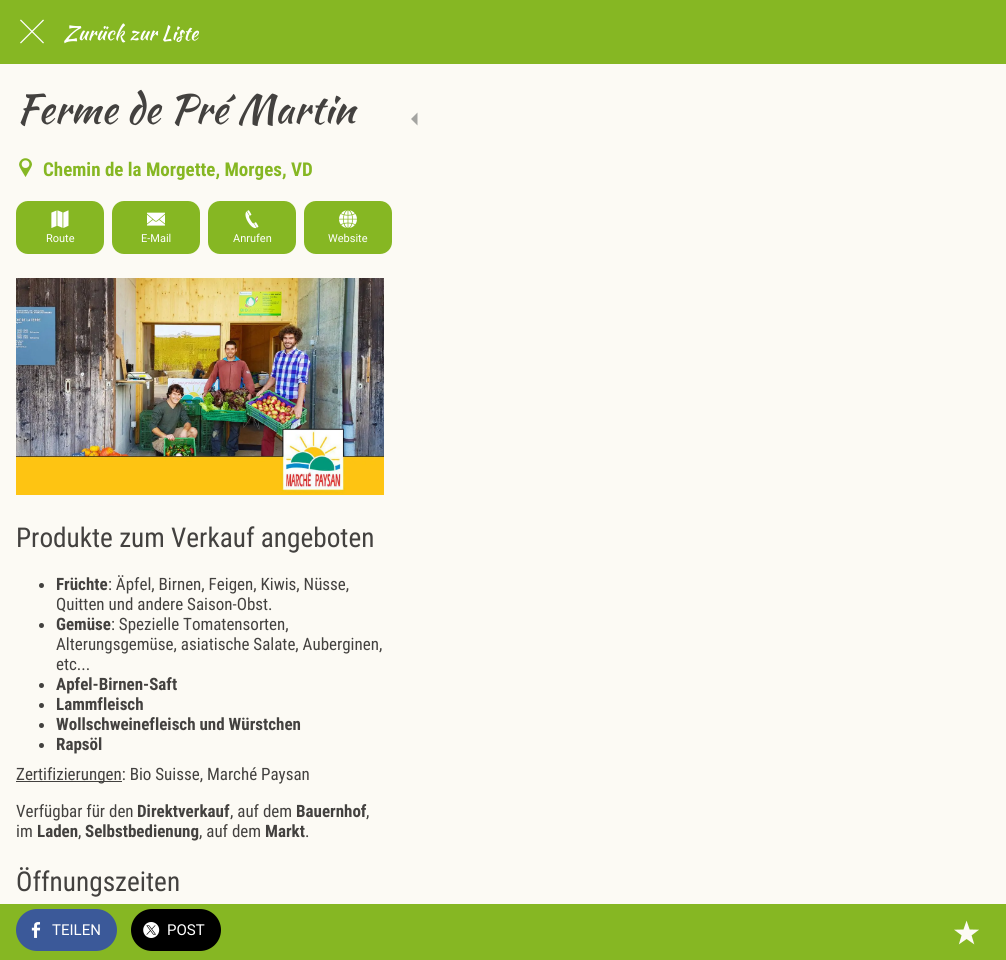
#include <cairo.h>
#include <math.h>
#include <stddef.h>

static cairo_t *ctx;

static void use_color(int r, int g, int b) {
    cairo_set_source_rgb(ctx, r / 255.0, g / 255.0, b / 255.0);
}

static void round_rect(double x, double y, double w, double h, double r) {
    cairo_new_sub_path(ctx);
    cairo_arc(ctx, x + w - r, y + h - r, r, 0, M_PI / 2);
    cairo_arc(ctx, x + r, y + h - r, r, M_PI / 2, M_PI);
    cairo_arc(ctx, x + r, y + r, r, M_PI, 1.5 * M_PI);
    cairo_arc(ctx, x + w - r, y + r, r, 1.5 * M_PI, 2 * M_PI);
    cairo_close_path(ctx);
}

static void picture(const char *path, double x, double y, double w, double h) {
    cairo_surface_t *image = cairo_image_surface_create_from_png(path);
    cairo_save(ctx);
    cairo_set_source_surface(ctx, image, x, y);
    cairo_rectangle(ctx, x, y, w, h);
    cairo_fill(ctx);
    cairo_restore(ctx);
    cairo_surface_destroy(image);
}

int main(void) {
    cairo_surface_t *surface = cairo_image_surface_create(CAIRO_FORMAT_RGB24, 1006, 960);
    ctx = cairo_create(surface);
    cairo_font_options_t *options = cairo_font_options_create();
    cairo_font_options_set_hint_metrics(options, CAIRO_HINT_METRICS_OFF);
    cairo_font_options_set_hint_style(options, CAIRO_HINT_STYLE_NONE);
    cairo_set_font_options(ctx, options);
    cairo_set_miter_limit(ctx, 4);
    use_color(252, 250, 244);
    cairo_paint(ctx);
    use_color(134, 183, 35);
    cairo_rectangle(ctx, 0, 0, 1006, 64);
    cairo_fill(ctx);
    picture("img1.png", 20, 19, 24, 25);
    cairo_select_font_face(ctx, "Kaushan Script", CAIRO_FONT_SLANT_NORMAL, CAIRO_FONT_WEIGHT_NORMAL);
    cairo_set_font_size(ctx, 20);
    use_color(255, 255, 255);
    cairo_move_to(ctx, 64, 40);
    cairo_show_text(ctx, "Zurück zur Liste");
    cairo_set_font_size(ctx, 40);
    use_color(67, 65, 63);
    cairo_move_to(ctx, 16, 123);
    cairo_show_text(ctx, "Ferme de Pré Martin");
    picture("img2.png", 19, 158, 13, 19);
    cairo_select_font_face(ctx, "Roboto Condensed", CAIRO_FONT_SLANT_NORMAL, CAIRO_FONT_WEIGHT_BOLD);
    cairo_set_font_size(ctx, 19);
    use_color(134, 183, 35);
    cairo_move_to(ctx, 43, 176);
    cairo_show_text(ctx, "Chemin de la Morgette, Morges, VD");
    round_rect(16, 201, 88, 53, 12);
    cairo_fill(ctx);
    picture("img3.png", 51, 210, 18, 18);
    cairo_select_font_face(ctx, "Roboto", CAIRO_FONT_SLANT_NORMAL, CAIRO_FONT_WEIGHT_NORMAL);
    cairo_set_font_size(ctx, 11);
    use_color(255, 255, 255);
    cairo_move_to(ctx, 46, 242);
    cairo_show_text(ctx, "Route");
    use_color(134, 183, 35);
    round_rect(112, 201, 88, 53, 12);
    cairo_fill(ctx);
    picture("img4.png", 147, 212, 18, 14);
    use_color(255, 255, 255);
    cairo_move_to(ctx, 141, 242);
    cairo_show_text(ctx, "E-Mail");
    use_color(134, 183, 35);
    round_rect(208, 201, 88, 53, 12);
    cairo_fill(ctx);
    picture("img5.png", 245, 210, 14, 19);
    use_color(255, 255, 255);
    cairo_move_to(ctx, 233, 242);
    cairo_show_text(ctx, "Anrufen");
    use_color(134, 183, 35);
    round_rect(304, 201, 88, 53, 12);
    cairo_fill(ctx);
    picture("img6.png", 339, 210, 18, 18);
    use_color(255, 255, 255);
    cairo_move_to(ctx, 328, 242);
    cairo_show_text(ctx, "Website");
    picture("img7.png", 16, 278, 368, 217);
    cairo_select_font_face(ctx, "Roboto Condensed", CAIRO_FONT_SLANT_NORMAL, CAIRO_FONT_WEIGHT_NORMAL);
    cairo_set_font_size(ctx, 27.25);
    use_color(67, 65, 63);
    cairo_move_to(ctx, 16, 547);
    cairo_show_text(ctx, "Produkte zum Verkauf angeboten");
    cairo_new_path(ctx);
    cairo_arc(ctx, 41.5, 585.5, 2.5, 0, 2 * M_PI);
    cairo_fill(ctx);
    cairo_select_font_face(ctx, "Roboto Condensed", CAIRO_FONT_SLANT_NORMAL, CAIRO_FONT_WEIGHT_BOLD);
    cairo_set_font_size(ctx, 17);
    cairo_move_to(ctx, 56, 590);
    cairo_show_text(ctx, "Früchte");
    cairo_select_font_face(ctx, "Roboto Condensed", CAIRO_FONT_SLANT_NORMAL, CAIRO_FONT_WEIGHT_NORMAL);
    cairo_move_to(ctx, 108, 590);
    cairo_show_text(ctx, ": Äpfel, Birnen, Feigen, Kiwis, Nüsse,");
    cairo_move_to(ctx, 56, 610);
    cairo_show_text(ctx, "Quitten und andere Saison-Obst.");
    cairo_new_path(ctx);
    cairo_arc(ctx, 41.5, 625.5, 2.5, 0, 2 * M_PI);
    cairo_fill(ctx);
    cairo_select_font_face(ctx, "Roboto Condensed", CAIRO_FONT_SLANT_NORMAL, CAIRO_FONT_WEIGHT_BOLD);
    cairo_move_to(ctx, 56, 630);
    cairo_show_text(ctx, "Gemüse");
    cairo_select_font_face(ctx, "Roboto Condensed", CAIRO_FONT_SLANT_NORMAL, CAIRO_FONT_WEIGHT_NORMAL);
    cairo_move_to(ctx, 111, 630);
    cairo_show_text(ctx, ": Spezielle Tomatensorten,");
    cairo_move_to(ctx, 56, 650);
    cairo_show_text(ctx, "Alterungsgemüse, asiatische Salate, Auberginen,");
    cairo_move_to(ctx, 56, 670);
    cairo_show_text(ctx, "etc...");
    cairo_new_path(ctx);
    cairo_arc(ctx, 41.5, 685.5, 2.5, 0, 2 * M_PI);
    cairo_fill(ctx);
    cairo_select_font_face(ctx, "Roboto Condensed", CAIRO_FONT_SLANT_NORMAL, CAIRO_FONT_WEIGHT_BOLD);
    cairo_move_to(ctx, 56, 690);
    cairo_show_text(ctx, "Apfel-Birnen-Saft");
    cairo_new_path(ctx);
    cairo_arc(ctx, 41.5, 705.5, 2.5, 0, 2 * M_PI);
    cairo_fill(ctx);
    cairo_move_to(ctx, 56, 710);
    cairo_show_text(ctx, "Lammfleisch");
    cairo_new_path(ctx);
    cairo_arc(ctx, 41.5, 725.5, 2.5, 0, 2 * M_PI);
    cairo_fill(ctx);
    cairo_move_to(ctx, 56, 730);
    cairo_show_text(ctx, "Wollschweinefleisch und Würstchen");
    cairo_new_path(ctx);
    cairo_arc(ctx, 41.5, 745.5, 2.5, 0, 2 * M_PI);
    cairo_fill(ctx);
    cairo_move_to(ctx, 56, 750);
    cairo_show_text(ctx, "Rapsöl");
    cairo_rectangle(ctx, 16, 781, 106, 1);
    cairo_fill(ctx);
    cairo_select_font_face(ctx, "Roboto Condensed", CAIRO_FONT_SLANT_NORMAL, CAIRO_FONT_WEIGHT_NORMAL);
    cairo_move_to(ctx, 16, 780);
    cairo_show_text(ctx, "Zertifizierungen: Bio Suisse, Marché Paysan");
    cairo_move_to(ctx, 16, 817);
    cairo_show_text(ctx, "Verfügbar für den");
    cairo_select_font_face(ctx, "Roboto Condensed", CAIRO_FONT_SLANT_NORMAL, CAIRO_FONT_WEIGHT_BOLD);
    cairo_move_to(ctx, 137, 817);
    cairo_show_text(ctx, "Direktverkauf");
    cairo_select_font_face(ctx, "Roboto Condensed", CAIRO_FONT_SLANT_NORMAL, CAIRO_FONT_WEIGHT_NORMAL);
    cairo_move_to(ctx, 230, 817);
    cairo_show_text(ctx, ", auf dem");
    cairo_select_font_face(ctx, "Roboto Condensed", CAIRO_FONT_SLANT_NORMAL, CAIRO_FONT_WEIGHT_BOLD);
    cairo_move_to(ctx, 296, 817);
    cairo_show_text(ctx, "Bauernhof");
    cairo_select_font_face(ctx, "Roboto Condensed", CAIRO_FONT_SLANT_NORMAL, CAIRO_FONT_WEIGHT_NORMAL);
    cairo_move_to(ctx, 366, 817);
    cairo_show_text(ctx, ",");
    cairo_move_to(ctx, 16, 837);
    cairo_show_text(ctx, "im");
    cairo_select_font_face(ctx, "Roboto Condensed", CAIRO_FONT_SLANT_NORMAL, CAIRO_FONT_WEIGHT_BOLD);
    cairo_move_to(ctx, 37, 837);
    cairo_show_text(ctx, "Laden");
    cairo_select_font_face(ctx, "Roboto Condensed", CAIRO_FONT_SLANT_NORMAL, CAIRO_FONT_WEIGHT_NORMAL);
    cairo_move_to(ctx, 78, 837);
    cairo_show_text(ctx, ",");
    cairo_select_font_face(ctx, "Roboto Condensed", CAIRO_FONT_SLANT_NORMAL, CAIRO_FONT_WEIGHT_BOLD);
    cairo_move_to(ctx, 85, 837);
    cairo_show_text(ctx, "Selbstbedienung");
    cairo_select_font_face(ctx, "Roboto Condensed", CAIRO_FONT_SLANT_NORMAL, CAIRO_FONT_WEIGHT_NORMAL);
    cairo_move_to(ctx, 199, 837);
    cairo_show_text(ctx, ", auf dem");
    cairo_select_font_face(ctx, "Roboto Condensed", CAIRO_FONT_SLANT_NORMAL, CAIRO_FONT_WEIGHT_BOLD);
    cairo_move_to(ctx, 265, 837);
    cairo_show_text(ctx, "Markt");
    cairo_select_font_face(ctx, "Roboto Condensed", CAIRO_FONT_SLANT_NORMAL, CAIRO_FONT_WEIGHT_NORMAL);
    cairo_move_to(ctx, 305, 837);
    cairo_show_text(ctx, ".");
    cairo_set_font_size(ctx, 27.25);
    cairo_move_to(ctx, 16, 891);
    cairo_show_text(ctx, "Öffnungszeiten");
    use_color(134, 183, 35);
    cairo_rectangle(ctx, 0, 904, 1006, 56);
    cairo_fill(ctx);
    use_color(59, 89, 153);
    round_rect(16, 909, 101, 42, 21);
    cairo_fill(ctx);
    picture("img8.png", 31, 922, 10, 16);
    cairo_select_font_face(ctx, "Roboto", CAIRO_FONT_SLANT_NORMAL, CAIRO_FONT_WEIGHT_NORMAL);
    cairo_set_font_size(ctx, 15);
    use_color(255, 255, 255);
    cairo_move_to(ctx, 52, 935);
    cairo_show_text(ctx, "TEILEN");
    use_color(0, 0, 0);
    round_rect(131, 909, 90, 42, 21);
    cairo_fill(ctx);
    picture("img9.png", 143, 922, 17, 16);
    use_color(255, 255, 255);
    cairo_move_to(ctx, 167, 935);
    cairo_show_text(ctx, "POST");
    picture("img10.png", 954, 920, 25, 25);
    use_color(164, 164, 161);
    cairo_new_path(ctx);
    cairo_move_to(ctx, 417.5, 112.5);
    cairo_line_to(ctx, 411, 119);
    cairo_line_to(ctx, 417.5, 125.5);
    cairo_line_to(ctx, 417.5, 113);
    cairo_close_path(ctx);
    cairo_fill(ctx);
    cairo_surface_write_to_png(surface, "result.png");
    cairo_font_options_destroy(options);
    cairo_destroy(ctx);
    cairo_surface_destroy(surface);
    return 0;
}
